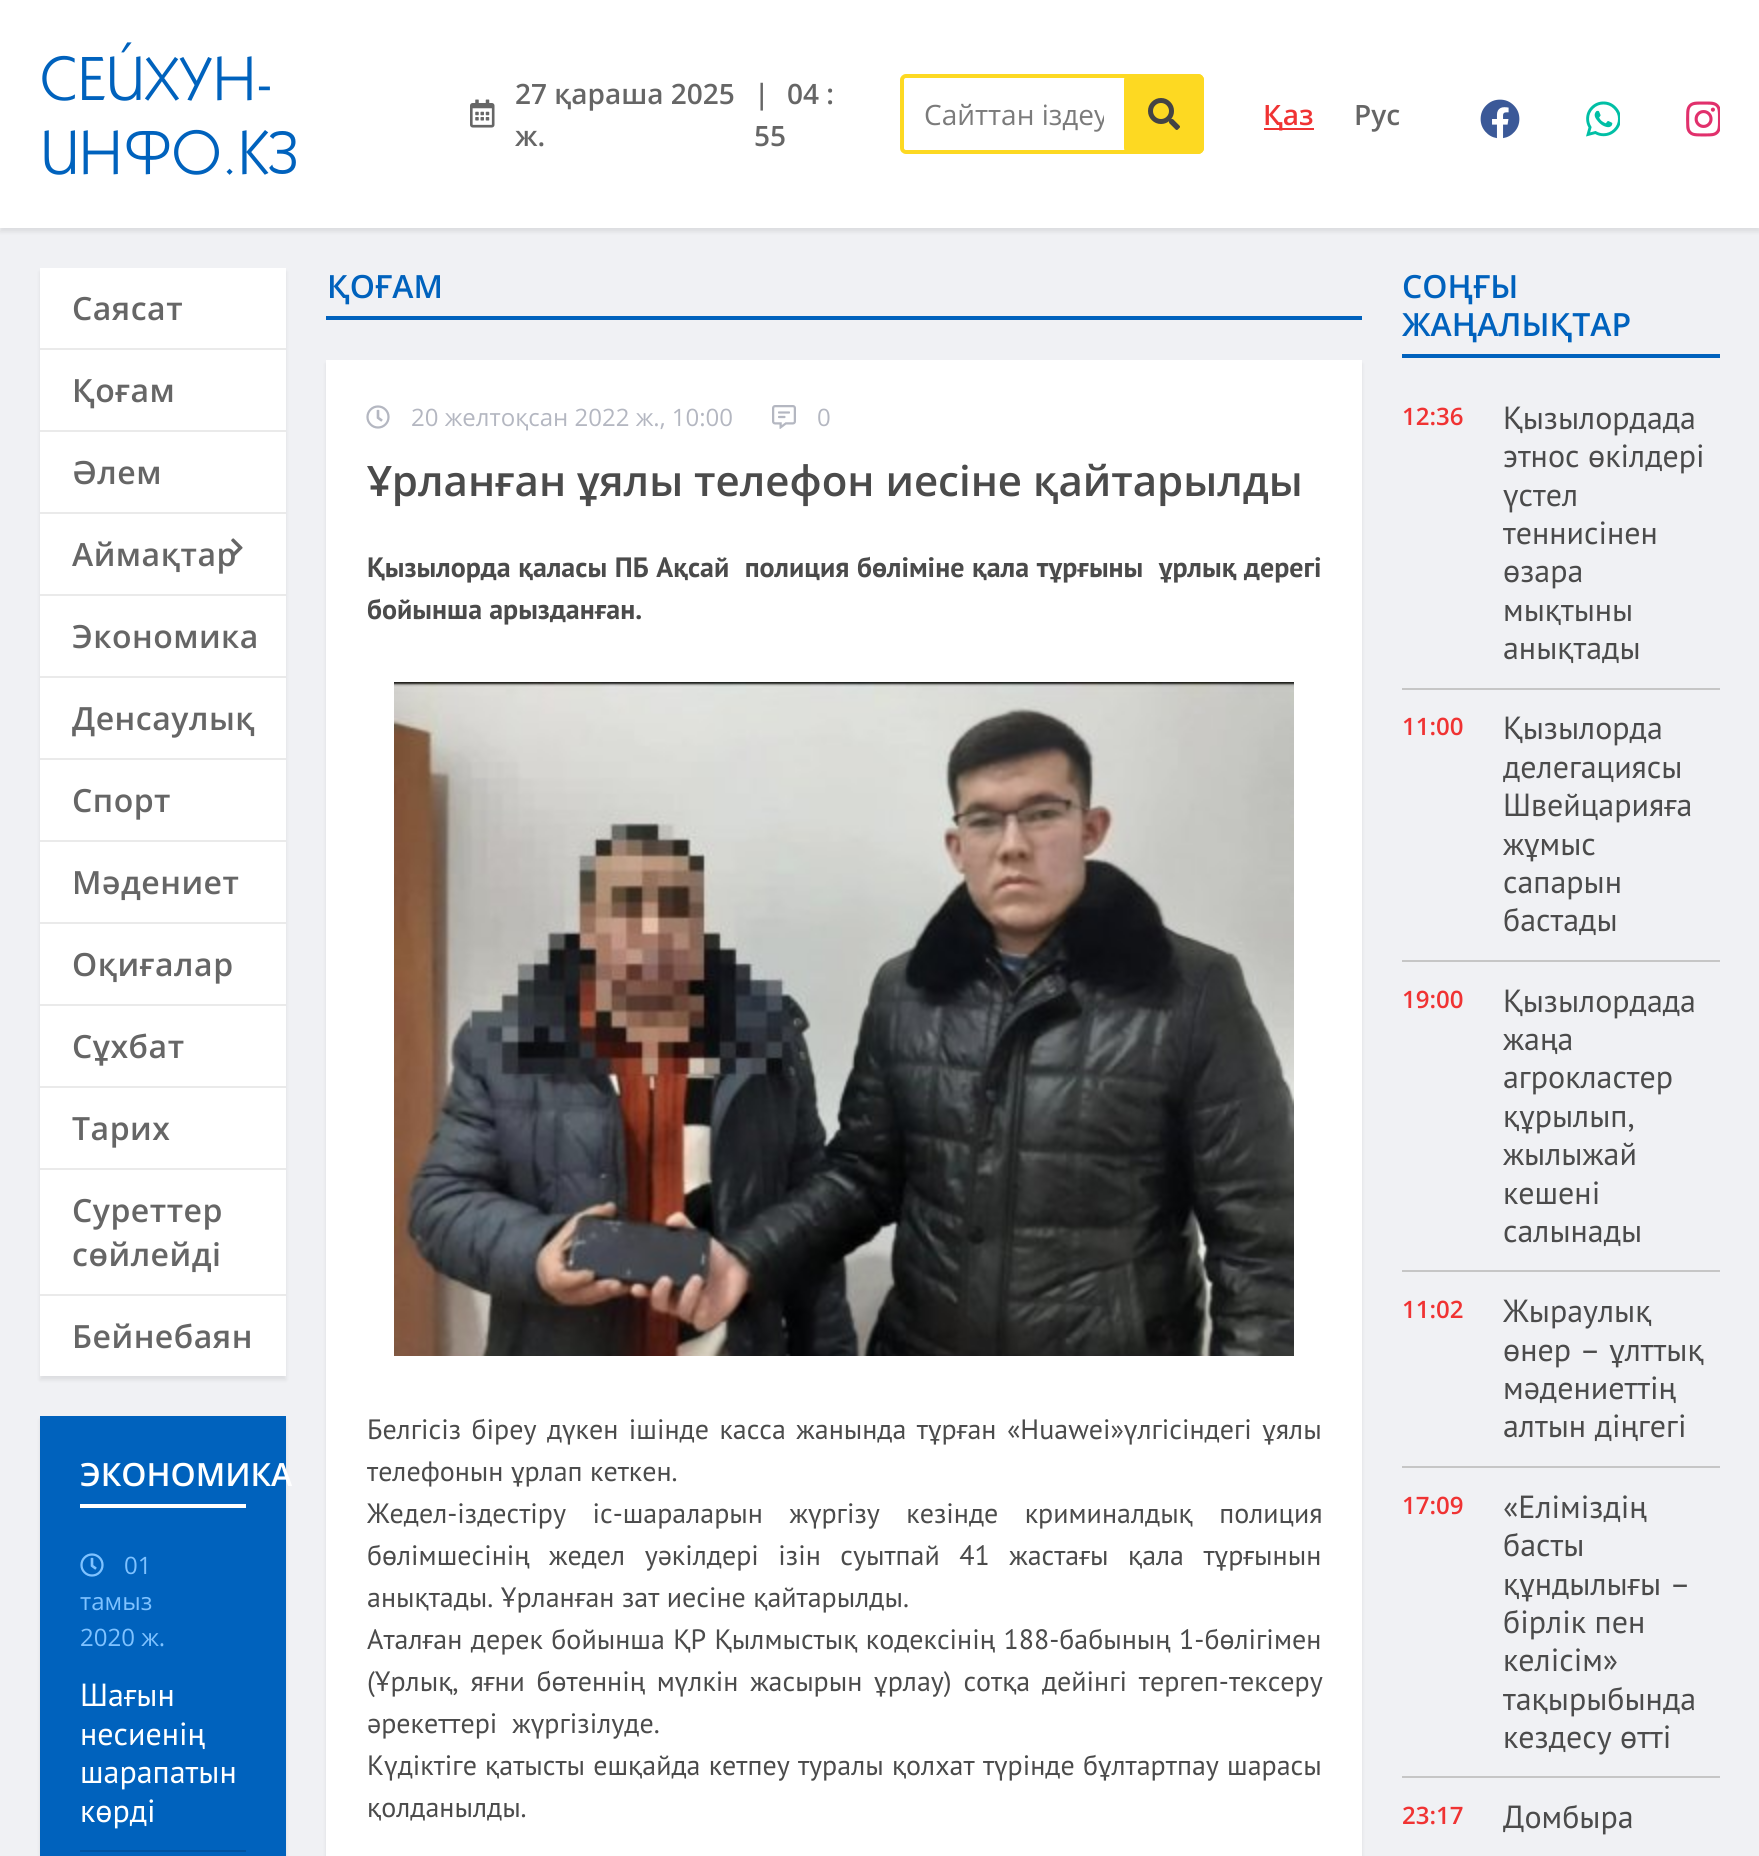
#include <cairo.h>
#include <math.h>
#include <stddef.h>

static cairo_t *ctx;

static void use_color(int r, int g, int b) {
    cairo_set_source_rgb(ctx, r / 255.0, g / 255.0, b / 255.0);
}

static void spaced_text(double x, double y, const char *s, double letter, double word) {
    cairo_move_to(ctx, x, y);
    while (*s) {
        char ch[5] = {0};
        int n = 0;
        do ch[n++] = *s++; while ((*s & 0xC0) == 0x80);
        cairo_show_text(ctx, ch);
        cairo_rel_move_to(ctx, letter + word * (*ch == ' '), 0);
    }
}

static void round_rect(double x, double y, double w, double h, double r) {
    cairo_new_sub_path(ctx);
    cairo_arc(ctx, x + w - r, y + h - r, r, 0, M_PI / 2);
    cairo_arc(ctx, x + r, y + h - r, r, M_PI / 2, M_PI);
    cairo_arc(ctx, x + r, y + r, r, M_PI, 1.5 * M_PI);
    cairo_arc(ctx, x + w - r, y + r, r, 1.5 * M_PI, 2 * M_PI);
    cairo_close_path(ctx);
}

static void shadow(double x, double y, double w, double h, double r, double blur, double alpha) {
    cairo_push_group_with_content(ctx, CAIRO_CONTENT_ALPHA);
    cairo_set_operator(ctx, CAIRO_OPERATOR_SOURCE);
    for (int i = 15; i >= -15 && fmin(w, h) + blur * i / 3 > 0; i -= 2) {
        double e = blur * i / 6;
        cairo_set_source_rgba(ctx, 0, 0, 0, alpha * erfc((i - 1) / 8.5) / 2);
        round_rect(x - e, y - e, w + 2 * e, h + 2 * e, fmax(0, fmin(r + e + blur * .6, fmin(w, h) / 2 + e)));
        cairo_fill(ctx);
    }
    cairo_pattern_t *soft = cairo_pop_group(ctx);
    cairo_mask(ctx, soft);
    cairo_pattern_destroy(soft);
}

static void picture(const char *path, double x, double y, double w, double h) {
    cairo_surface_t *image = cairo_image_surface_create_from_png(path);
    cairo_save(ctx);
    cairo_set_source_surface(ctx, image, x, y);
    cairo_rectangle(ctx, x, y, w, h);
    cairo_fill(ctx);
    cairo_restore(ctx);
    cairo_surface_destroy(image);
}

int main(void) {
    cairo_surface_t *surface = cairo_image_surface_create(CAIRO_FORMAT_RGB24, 1759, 1856);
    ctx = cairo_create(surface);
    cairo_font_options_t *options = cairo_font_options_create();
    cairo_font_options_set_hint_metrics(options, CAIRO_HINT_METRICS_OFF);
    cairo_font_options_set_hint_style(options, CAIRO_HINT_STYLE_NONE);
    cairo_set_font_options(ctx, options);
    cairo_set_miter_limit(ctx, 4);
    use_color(240, 241, 244);
    cairo_paint(ctx);
    use_color(0, 0, 0);
    shadow(0, 4, 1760, 228, 0, 2, 0.08);
    use_color(255, 255, 255);
    cairo_rectangle(ctx, 0, 0, 1759, 228);
    cairo_fill(ctx);
    cairo_select_font_face(ctx, "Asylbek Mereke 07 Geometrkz", CAIRO_FONT_SLANT_NORMAL, CAIRO_FONT_WEIGHT_NORMAL);
    cairo_set_font_size(ctx, 60);
    use_color(0, 98, 189);
    cairo_move_to(ctx, 40, 100);
    cairo_show_text(ctx, "СЕЙХУН-");
    cairo_move_to(ctx, 40, 174);
    cairo_show_text(ctx, "ИНФО.КЗ");
    picture("img1.png", 470, 99, 25, 29);
    cairo_select_font_face(ctx, "Open Sans SemiBold", CAIRO_FONT_SLANT_NORMAL, CAIRO_FONT_WEIGHT_NORMAL);
    cairo_set_font_size(ctx, 28);
    use_color(102, 102, 102);
    cairo_move_to(ctx, 515, 104);
    cairo_show_text(ctx, "27 қараша 2025");
    cairo_move_to(ctx, 515, 146);
    cairo_show_text(ctx, "ж.");
    cairo_move_to(ctx, 754, 104);
    cairo_show_text(ctx, "|");
    cairo_move_to(ctx, 787, 104);
    cairo_show_text(ctx, "04 :");
    cairo_move_to(ctx, 754, 146);
    cairo_show_text(ctx, "55");
    round_rect(902, 76, 300, 76, 4);
    use_color(253, 217, 34);
    cairo_set_line_width(ctx, 4);
    cairo_stroke(ctx);
    cairo_save(ctx);
    cairo_rectangle(ctx, 924, 96, 180, 38);
    cairo_clip(ctx);
    cairo_select_font_face(ctx, "Open Sans", CAIRO_FONT_SLANT_NORMAL, CAIRO_FONT_WEIGHT_NORMAL);
    use_color(123, 123, 123);
    cairo_move_to(ctx, 924, 125);
    cairo_show_text(ctx, "Сайттан іздеу");
    cairo_restore(ctx);
    round_rect(1124, 74, 80, 80, 6);
    cairo_fill(ctx);
    picture("img2.png", 1148, 98, 32, 32);
    use_color(240, 51, 51);
    cairo_rectangle(ctx, 1264, 128, 50, 2);
    cairo_fill(ctx);
    cairo_move_to(ctx, 1263, 125);
    cairo_show_text(ctx, "Қаз");
    use_color(102, 102, 102);
    cairo_move_to(ctx, 1354, 125);
    cairo_show_text(ctx, "Рус");
    picture("img3.png", 1480, 99, 40, 40);
    picture("img4.png", 1586, 101, 34, 36);
    picture("img5.png", 1686, 101, 34, 36);
    use_color(0, 0, 0);
    shadow(40, 272, 246, 1108, 0, 2, 0.08);
    use_color(255, 255, 255);
    cairo_rectangle(ctx, 40, 268, 246, 1108);
    cairo_fill(ctx);
    use_color(234, 234, 234);
    cairo_rectangle(ctx, 40, 348, 246, 2);
    cairo_fill(ctx);
    cairo_set_font_size(ctx, 32);
    use_color(102, 102, 102);
    spaced_text(72, 320, "Саясат", 0.5, 0);
    use_color(234, 234, 234);
    cairo_rectangle(ctx, 40, 430, 246, 2);
    cairo_fill(ctx);
    use_color(102, 102, 102);
    spaced_text(72, 402, "Қоғам", 0.5, 0);
    use_color(234, 234, 234);
    cairo_rectangle(ctx, 40, 512, 246, 2);
    cairo_fill(ctx);
    use_color(102, 102, 102);
    spaced_text(72, 484, "Әлем", 0.5, 0);
    use_color(234, 234, 234);
    cairo_rectangle(ctx, 40, 594, 246, 2);
    cairo_fill(ctx);
    use_color(102, 102, 102);
    spaced_text(72, 566, "Аймақтар", 0.5, 0);
    picture("img6.png", 231, 538, 12, 19);
    use_color(234, 234, 234);
    cairo_rectangle(ctx, 40, 676, 246, 2);
    cairo_fill(ctx);
    use_color(102, 102, 102);
    spaced_text(72, 648, "Экономика", 0.5, 0);
    use_color(234, 234, 234);
    cairo_rectangle(ctx, 40, 758, 246, 2);
    cairo_fill(ctx);
    use_color(102, 102, 102);
    spaced_text(72, 730, "Денсаулық", 0.5, 0);
    use_color(234, 234, 234);
    cairo_rectangle(ctx, 40, 840, 246, 2);
    cairo_fill(ctx);
    use_color(102, 102, 102);
    spaced_text(72, 812, "Спорт", 0.5, 0);
    use_color(234, 234, 234);
    cairo_rectangle(ctx, 40, 922, 246, 2);
    cairo_fill(ctx);
    use_color(102, 102, 102);
    spaced_text(72, 894, "Мәдениет", 0.5, 0);
    use_color(234, 234, 234);
    cairo_rectangle(ctx, 40, 1004, 246, 2);
    cairo_fill(ctx);
    use_color(102, 102, 102);
    spaced_text(72, 976, "Оқиғалар", 0.5, 0);
    use_color(234, 234, 234);
    cairo_rectangle(ctx, 40, 1086, 246, 2);
    cairo_fill(ctx);
    use_color(102, 102, 102);
    spaced_text(72, 1058, "Сұхбат", 0.5, 0);
    use_color(234, 234, 234);
    cairo_rectangle(ctx, 40, 1168, 246, 2);
    cairo_fill(ctx);
    use_color(102, 102, 102);
    spaced_text(72, 1140, "Тарих", 0.5, 0);
    use_color(234, 234, 234);
    cairo_rectangle(ctx, 40, 1294, 246, 2);
    cairo_fill(ctx);
    use_color(102, 102, 102);
    spaced_text(72, 1222, "Суреттер", 0.5, 0);
    spaced_text(72, 1266, "сөйлейді", 0.5, 0);
    spaced_text(72, 1348, "Бейнебаян", 0.5, 0);
    use_color(0, 0, 0);
    shadow(40, 1420, 246, 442, 0, 2, 0.08);
    use_color(0, 98, 189);
    cairo_rectangle(ctx, 40, 1416, 246, 440);
    cairo_fill(ctx);
    use_color(255, 255, 255);
    cairo_rectangle(ctx, 80, 1504, 166, 4);
    cairo_fill(ctx);
    cairo_move_to(ctx, 80, 1486);
    cairo_show_text(ctx, "ЭКОНОМИКА");
    use_color(0, 83, 161);
    cairo_rectangle(ctx, 80, 1850, 166, 2);
    cairo_fill(ctx);
    picture("img7.png", 80, 1553, 24, 24);
    cairo_select_font_face(ctx, "Open Sans", CAIRO_FONT_SLANT_NORMAL, CAIRO_FONT_WEIGHT_NORMAL);
    cairo_set_font_size(ctx, 24);
    use_color(127, 194, 255);
    cairo_move_to(ctx, 124, 1574);
    cairo_show_text(ctx, "01");
    cairo_move_to(ctx, 80, 1610);
    cairo_show_text(ctx, "тамыз");
    cairo_move_to(ctx, 80, 1646);
    cairo_show_text(ctx, "2020 ж.");
    cairo_select_font_face(ctx, "PT Sans", CAIRO_FONT_SLANT_NORMAL, CAIRO_FONT_WEIGHT_NORMAL);
    cairo_set_font_size(ctx, 32);
    use_color(255, 255, 255);
    cairo_move_to(ctx, 80, 1706);
    cairo_show_text(ctx, "Шағын");
    cairo_move_to(ctx, 80, 1745);
    cairo_show_text(ctx, "несиенің");
    cairo_move_to(ctx, 80, 1783);
    cairo_show_text(ctx, "шарапатын");
    cairo_move_to(ctx, 80, 1822);
    cairo_show_text(ctx, "көрді");
    use_color(0, 98, 189);
    cairo_rectangle(ctx, 326, 316, 1036, 4);
    cairo_fill(ctx);
    cairo_select_font_face(ctx, "Open Sans SemiBold", CAIRO_FONT_SLANT_NORMAL, CAIRO_FONT_WEIGHT_NORMAL);
    cairo_move_to(ctx, 327, 298);
    cairo_show_text(ctx, "ҚОҒАМ");
    use_color(0, 0, 0);
    shadow(326, 364, 1036, 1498, 0, 2, 0.08);
    use_color(255, 255, 255);
    cairo_rectangle(ctx, 326, 360, 1036, 1496);
    cairo_fill(ctx);
    picture("img8.png", 366, 405, 24, 24);
    cairo_select_font_face(ctx, "Open Sans", CAIRO_FONT_SLANT_NORMAL, CAIRO_FONT_WEIGHT_NORMAL);
    cairo_set_font_size(ctx, 24);
    use_color(180, 183, 193);
    cairo_move_to(ctx, 411, 426);
    cairo_show_text(ctx, "20 желтоқсан 2022 ж., 10:00");
    picture("img9.png", 772, 405, 24, 24);
    cairo_move_to(ctx, 817, 426);
    cairo_show_text(ctx, "0");
    cairo_select_font_face(ctx, "Open Sans SemiBold", CAIRO_FONT_SLANT_NORMAL, CAIRO_FONT_WEIGHT_NORMAL);
    cairo_set_font_size(ctx, 42);
    use_color(75, 75, 75);
    cairo_move_to(ctx, 367, 496);
    cairo_show_text(ctx, "Ұрланған ұялы телефон иесіне қайтарылды");
    cairo_select_font_face(ctx, "PT Sans", CAIRO_FONT_SLANT_NORMAL, CAIRO_FONT_WEIGHT_BOLD);
    cairo_set_font_size(ctx, 28);
    spaced_text(367, 577, "Қызылорда қаласы ПБ Ақсай  полиция бөліміне қала тұрғыны  ұрлық дерегі", 0, 0.6);
    cairo_move_to(ctx, 367, 619);
    cairo_show_text(ctx, "бойынша арызданған.");
    picture("img10.png", 394, 682, 900, 674);
    cairo_select_font_face(ctx, "PT Sans", CAIRO_FONT_SLANT_NORMAL, CAIRO_FONT_WEIGHT_NORMAL);
    spaced_text(367, 1439, "Белгісіз біреу дүкен ішінде касса жанында тұрған «Huawei»үлгісіндегі ұялы", 0, 3);
    cairo_move_to(ctx, 367, 1481);
    cairo_show_text(ctx, "телефонын ұрлап кеткен.");
    spaced_text(367, 1523, "Жедел-іздестіру іс-шараларын жүргізу кезінде криминалдық полиция", 0, 19);
    spaced_text(367, 1565, "бөлімшесінің жедел уәкілдері ізін суытпай 41 жастағы қала тұрғынын", 0, 12);
    cairo_move_to(ctx, 367, 1607);
    cairo_show_text(ctx, "анықтады. Ұрланған зат иесіне қайтарылды.");
    spaced_text(367, 1649, "Аталған дерек бойынша ҚР Қылмыстық кодексінің 188-бабының 1-бөлігімен", 0, 1);
    spaced_text(367, 1691, "(Ұрлық, яғни бөтеннің мүлкін жасырын ұрлау) сотқа дейінгі тергеп-тексеру", 0, 4.25);
    cairo_move_to(ctx, 367, 1733);
    cairo_show_text(ctx, "әрекеттері  жүргізілуде.");
    spaced_text(367, 1775, "Күдіктіге қатысты ешқайда кетпеу туралы қолхат түрінде бұлтартпау шарасы", 0, 0.75);
    cairo_move_to(ctx, 367, 1817);
    cairo_show_text(ctx, "қолданылды.");
    use_color(0, 98, 189);
    cairo_rectangle(ctx, 1402, 354, 318, 4);
    cairo_fill(ctx);
    cairo_select_font_face(ctx, "Open Sans SemiBold", CAIRO_FONT_SLANT_NORMAL, CAIRO_FONT_WEIGHT_NORMAL);
    cairo_set_font_size(ctx, 32);
    cairo_move_to(ctx, 1402, 298);
    cairo_show_text(ctx, "СОҢҒЫ");
    cairo_move_to(ctx, 1402, 336);
    cairo_show_text(ctx, "ЖАҢАЛЫҚТАР");
    use_color(198, 198, 198);
    cairo_rectangle(ctx, 1402, 688, 318, 2);
    cairo_fill(ctx);
    cairo_set_font_size(ctx, 24);
    use_color(240, 51, 51);
    cairo_move_to(ctx, 1402, 425);
    cairo_show_text(ctx, "12:36");
    cairo_select_font_face(ctx, "PT Sans", CAIRO_FONT_SLANT_NORMAL, CAIRO_FONT_WEIGHT_NORMAL);
    cairo_set_font_size(ctx, 32);
    use_color(75, 75, 75);
    cairo_move_to(ctx, 1503, 429);
    cairo_show_text(ctx, "Қызылордада");
    cairo_move_to(ctx, 1503, 467);
    cairo_show_text(ctx, "этнос өкілдері");
    cairo_move_to(ctx, 1503, 506);
    cairo_show_text(ctx, "үстел");
    cairo_move_to(ctx, 1503, 544);
    cairo_show_text(ctx, "теннисінен");
    cairo_move_to(ctx, 1503, 582);
    cairo_show_text(ctx, "өзара");
    cairo_move_to(ctx, 1503, 621);
    cairo_show_text(ctx, "мықтыны");
    cairo_move_to(ctx, 1503, 659);
    cairo_show_text(ctx, "анықтады");
    use_color(198, 198, 198);
    cairo_rectangle(ctx, 1402, 960, 318, 2);
    cairo_fill(ctx);
    cairo_select_font_face(ctx, "Open Sans SemiBold", CAIRO_FONT_SLANT_NORMAL, CAIRO_FONT_WEIGHT_NORMAL);
    cairo_set_font_size(ctx, 24);
    use_color(240, 51, 51);
    cairo_move_to(ctx, 1402, 735);
    cairo_show_text(ctx, "11:00");
    cairo_select_font_face(ctx, "PT Sans", CAIRO_FONT_SLANT_NORMAL, CAIRO_FONT_WEIGHT_NORMAL);
    cairo_set_font_size(ctx, 32);
    use_color(75, 75, 75);
    cairo_move_to(ctx, 1503, 739);
    cairo_show_text(ctx, "Қызылорда");
    cairo_move_to(ctx, 1503, 778);
    cairo_show_text(ctx, "делегациясы");
    cairo_move_to(ctx, 1503, 816);
    cairo_show_text(ctx, "Швейцарияға");
    cairo_move_to(ctx, 1503, 855);
    cairo_show_text(ctx, "жұмыс");
    cairo_move_to(ctx, 1503, 893);
    cairo_show_text(ctx, "сапарын");
    cairo_move_to(ctx, 1503, 931);
    cairo_show_text(ctx, "бастады");
    use_color(198, 198, 198);
    cairo_rectangle(ctx, 1402, 1270, 318, 2);
    cairo_fill(ctx);
    cairo_select_font_face(ctx, "Open Sans SemiBold", CAIRO_FONT_SLANT_NORMAL, CAIRO_FONT_WEIGHT_NORMAL);
    cairo_set_font_size(ctx, 24);
    use_color(240, 51, 51);
    cairo_move_to(ctx, 1402, 1008);
    cairo_show_text(ctx, "19:00");
    cairo_select_font_face(ctx, "PT Sans", CAIRO_FONT_SLANT_NORMAL, CAIRO_FONT_WEIGHT_NORMAL);
    cairo_set_font_size(ctx, 32);
    use_color(75, 75, 75);
    cairo_move_to(ctx, 1503, 1012);
    cairo_show_text(ctx, "Қызылордада");
    cairo_move_to(ctx, 1503, 1050);
    cairo_show_text(ctx, "жаңа");
    cairo_move_to(ctx, 1503, 1088);
    cairo_show_text(ctx, "агрокластер");
    cairo_move_to(ctx, 1503, 1127);
    cairo_show_text(ctx, "құрылып,");
    cairo_move_to(ctx, 1503, 1165);
    cairo_show_text(ctx, "жылыжай");
    cairo_move_to(ctx, 1503, 1204);
    cairo_show_text(ctx, "кешені");
    cairo_move_to(ctx, 1503, 1242);
    cairo_show_text(ctx, "салынады");
    use_color(198, 198, 198);
    cairo_rectangle(ctx, 1402, 1466, 318, 2);
    cairo_fill(ctx);
    cairo_select_font_face(ctx, "Open Sans SemiBold", CAIRO_FONT_SLANT_NORMAL, CAIRO_FONT_WEIGHT_NORMAL);
    cairo_set_font_size(ctx, 24);
    use_color(240, 51, 51);
    cairo_move_to(ctx, 1402, 1318);
    cairo_show_text(ctx, "11:02");
    cairo_select_font_face(ctx, "PT Sans", CAIRO_FONT_SLANT_NORMAL, CAIRO_FONT_WEIGHT_NORMAL);
    cairo_set_font_size(ctx, 32);
    use_color(75, 75, 75);
    cairo_move_to(ctx, 1503, 1322);
    cairo_show_text(ctx, "Жыраулық");
    cairo_move_to(ctx, 1503, 1361);
    cairo_show_text(ctx, "өнер – ұлттық");
    cairo_move_to(ctx, 1503, 1399);
    cairo_show_text(ctx, "мәдениеттің");
    cairo_move_to(ctx, 1503, 1437);
    cairo_show_text(ctx, "алтын діңгегі");
    use_color(198, 198, 198);
    cairo_rectangle(ctx, 1402, 1776, 318, 2);
    cairo_fill(ctx);
    cairo_select_font_face(ctx, "Open Sans SemiBold", CAIRO_FONT_SLANT_NORMAL, CAIRO_FONT_WEIGHT_NORMAL);
    cairo_set_font_size(ctx, 24);
    use_color(240, 51, 51);
    cairo_move_to(ctx, 1402, 1514);
    cairo_show_text(ctx, "17:09");
    cairo_select_font_face(ctx, "PT Sans", CAIRO_FONT_SLANT_NORMAL, CAIRO_FONT_WEIGHT_NORMAL);
    cairo_set_font_size(ctx, 32);
    use_color(75, 75, 75);
    cairo_move_to(ctx, 1503, 1518);
    cairo_show_text(ctx, "«Еліміздің");
    cairo_move_to(ctx, 1503, 1556);
    cairo_show_text(ctx, "басты");
    cairo_move_to(ctx, 1503, 1595);
    cairo_show_text(ctx, "құндылығы –");
    cairo_move_to(ctx, 1503, 1633);
    cairo_show_text(ctx, "бірлік пен");
    cairo_move_to(ctx, 1503, 1671);
    cairo_show_text(ctx, "келісім»");
    cairo_move_to(ctx, 1503, 1710);
    cairo_show_text(ctx, "тақырыбында");
    cairo_move_to(ctx, 1503, 1748);
    cairo_show_text(ctx, "кездесу өтті");
    cairo_select_font_face(ctx, "Open Sans SemiBold", CAIRO_FONT_SLANT_NORMAL, CAIRO_FONT_WEIGHT_NORMAL);
    cairo_set_font_size(ctx, 24);
    use_color(240, 51, 51);
    cairo_move_to(ctx, 1402, 1824);
    cairo_show_text(ctx, "23:17");
    cairo_select_font_face(ctx, "PT Sans", CAIRO_FONT_SLANT_NORMAL, CAIRO_FONT_WEIGHT_NORMAL);
    cairo_set_font_size(ctx, 32);
    use_color(75, 75, 75);
    cairo_move_to(ctx, 1503, 1828);
    cairo_show_text(ctx, "Домбыра");
    cairo_surface_write_to_png(surface, "result.png");
    cairo_font_options_destroy(options);
    cairo_destroy(ctx);
    cairo_surface_destroy(surface);
    return 0;
}
